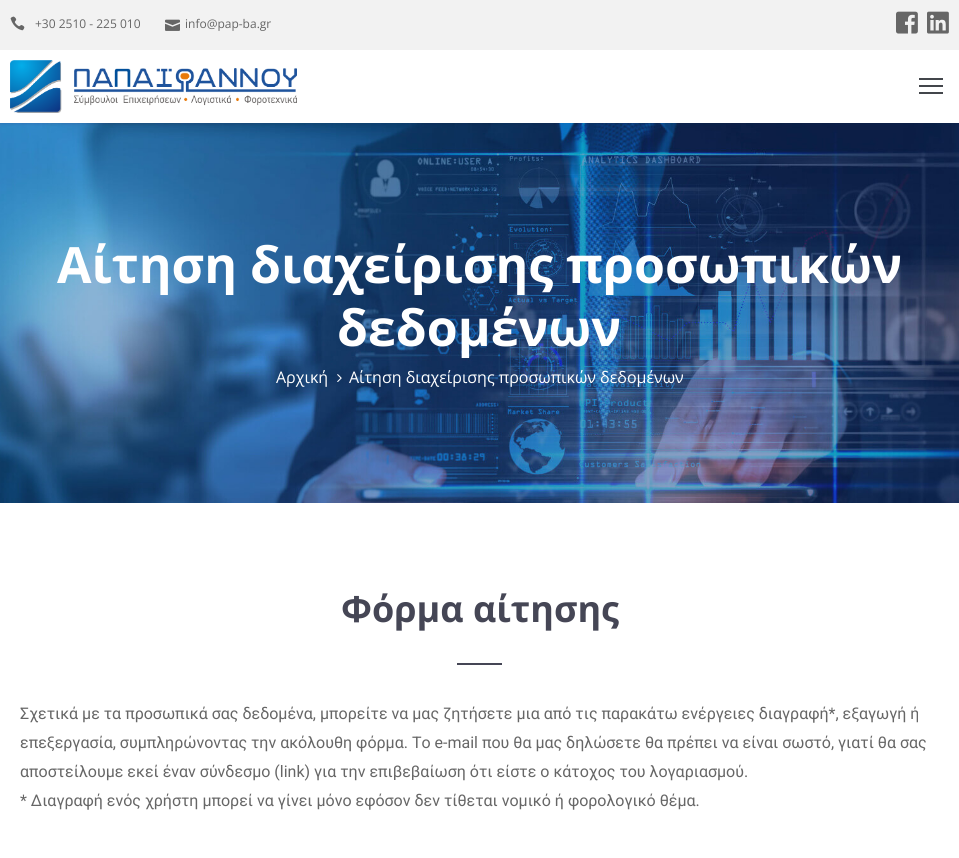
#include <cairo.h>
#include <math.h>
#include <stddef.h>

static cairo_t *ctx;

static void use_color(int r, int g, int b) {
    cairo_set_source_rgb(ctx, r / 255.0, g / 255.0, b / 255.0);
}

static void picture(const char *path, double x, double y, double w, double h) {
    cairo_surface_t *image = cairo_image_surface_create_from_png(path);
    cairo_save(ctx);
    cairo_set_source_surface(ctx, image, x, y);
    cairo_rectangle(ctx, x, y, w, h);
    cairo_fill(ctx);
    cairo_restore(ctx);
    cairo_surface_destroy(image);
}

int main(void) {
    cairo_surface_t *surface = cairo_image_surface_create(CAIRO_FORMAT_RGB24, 959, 858);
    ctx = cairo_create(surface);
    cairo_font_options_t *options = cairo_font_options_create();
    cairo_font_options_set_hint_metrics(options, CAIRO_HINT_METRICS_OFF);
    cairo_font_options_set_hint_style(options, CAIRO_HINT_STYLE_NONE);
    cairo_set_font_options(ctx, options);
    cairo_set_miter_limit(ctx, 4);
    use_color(255, 255, 255);
    cairo_paint(ctx);
    use_color(242, 242, 242);
    cairo_rectangle(ctx, 0, 0, 959, 50);
    cairo_fill(ctx);
    picture("img1.png", 10, 16, 15, 15);
    cairo_select_font_face(ctx, "Open Sans", CAIRO_FONT_SLANT_NORMAL, CAIRO_FONT_WEIGHT_NORMAL);
    cairo_set_font_size(ctx, 12);
    use_color(102, 102, 102);
    cairo_move_to(ctx, 35, 28);
    cairo_show_text(ctx, "+30 2510 - 225 010");
    picture("img2.png", 165, 19, 15, 12);
    cairo_move_to(ctx, 185, 28);
    cairo_show_text(ctx, "info@pap-ba.gr");
    picture("img3.png", 896, 11, 22, 23);
    picture("img4.png", 927, 11, 22, 23);
    picture("img5.png", 10, 60, 287, 53);
    use_color(67, 70, 75);
    cairo_rectangle(ctx, 919, 78, 24, 2);
    cairo_fill(ctx);
    cairo_rectangle(ctx, 919, 85, 24, 2);
    cairo_fill(ctx);
    cairo_rectangle(ctx, 919, 92, 24, 2);
    cairo_fill(ctx);
    picture("img6.png", 0, 123, 959, 380);
    cairo_select_font_face(ctx, "Open Sans", CAIRO_FONT_SLANT_NORMAL, CAIRO_FONT_WEIGHT_BOLD);
    cairo_set_font_size(ctx, 50);
    use_color(255, 255, 255);
    cairo_move_to(ctx, 57, 283);
    cairo_show_text(ctx, "Αίτηση διαχείρισης προσωπικών");
    cairo_move_to(ctx, 337, 346);
    cairo_show_text(ctx, "δεδομένων");
    cairo_select_font_face(ctx, "Open Sans", CAIRO_FONT_SLANT_NORMAL, CAIRO_FONT_WEIGHT_NORMAL);
    cairo_set_font_size(ctx, 16);
    cairo_move_to(ctx, 276, 383);
    cairo_show_text(ctx, "Αρχική");
    picture("img7.png", 337, 374, 5, 8);
    cairo_move_to(ctx, 349, 383);
    cairo_show_text(ctx, "Αίτηση διαχείρισης προσωπικών δεδομένων");
    cairo_select_font_face(ctx, "Open Sans", CAIRO_FONT_SLANT_NORMAL, CAIRO_FONT_WEIGHT_BOLD);
    cairo_set_font_size(ctx, 36);
    use_color(69, 70, 85);
    cairo_move_to(ctx, 341, 622);
    cairo_show_text(ctx, "Φόρμα αίτησης");
    cairo_rectangle(ctx, 457, 663, 45, 2);
    cairo_fill(ctx);
    cairo_select_font_face(ctx, "Roboto", CAIRO_FONT_SLANT_NORMAL, CAIRO_FONT_WEIGHT_NORMAL);
    cairo_set_font_size(ctx, 16);
    use_color(102, 102, 102);
    cairo_move_to(ctx, 20, 719);
    cairo_show_text(ctx, "Σχετικά με τα προσωπικά σας δεδομένα, μπορείτε να μας ζητήσετε μια από τις παρακάτω ενέργειες διαγραφή*, εξαγωγή ή");
    cairo_move_to(ctx, 20, 748);
    cairo_show_text(ctx, "επεξεργασία, συμπληρώνοντας την ακόλουθη φόρμα. Το e-mail που θα μας δηλώσετε θα πρέπει να είναι σωστό, γιατί θα σας");
    cairo_move_to(ctx, 20, 777);
    cairo_show_text(ctx, "αποστείλουμε εκεί έναν σύνδεσμο (link) για την επιβεβαίωση ότι είστε ο κάτοχος του λογαριασμού.");
    cairo_move_to(ctx, 20, 806);
    cairo_show_text(ctx, "* Διαγραφή ενός χρήστη μπορεί να γίνει μόνο εφόσον δεν τίθεται νομικό ή φορολογικό θέμα.");
    cairo_surface_write_to_png(surface, "result.png");
    cairo_font_options_destroy(options);
    cairo_destroy(ctx);
    cairo_surface_destroy(surface);
    return 0;
}
